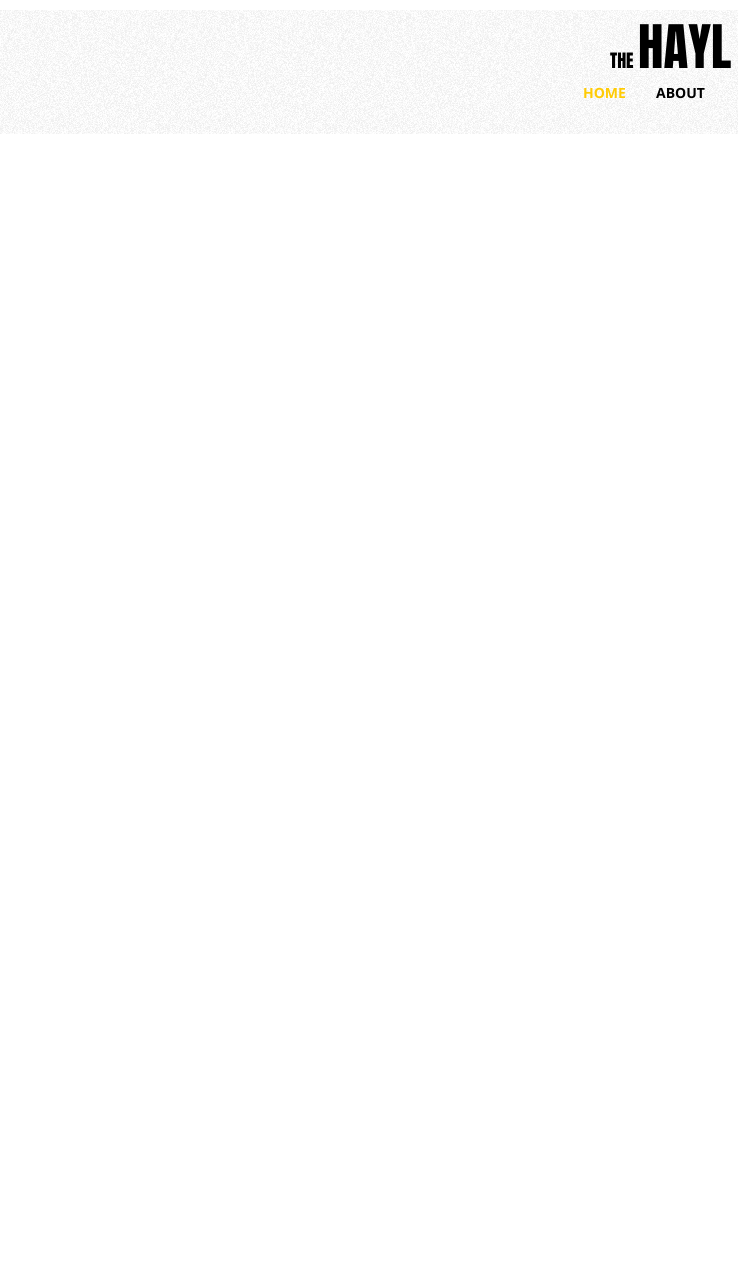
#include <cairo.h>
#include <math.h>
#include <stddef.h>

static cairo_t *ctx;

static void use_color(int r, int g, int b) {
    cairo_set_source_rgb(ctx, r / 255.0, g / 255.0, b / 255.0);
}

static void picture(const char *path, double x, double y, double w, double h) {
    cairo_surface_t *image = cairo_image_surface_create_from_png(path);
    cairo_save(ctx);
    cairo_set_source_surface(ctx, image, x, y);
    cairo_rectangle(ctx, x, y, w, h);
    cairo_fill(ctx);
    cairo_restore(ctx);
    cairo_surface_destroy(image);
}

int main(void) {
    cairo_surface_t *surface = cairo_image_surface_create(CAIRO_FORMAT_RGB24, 738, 1286);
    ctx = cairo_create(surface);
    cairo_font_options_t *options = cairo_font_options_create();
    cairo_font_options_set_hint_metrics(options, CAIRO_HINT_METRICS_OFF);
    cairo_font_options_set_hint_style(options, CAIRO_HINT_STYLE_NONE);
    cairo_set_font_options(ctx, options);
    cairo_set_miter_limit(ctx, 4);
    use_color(255, 255, 255);
    cairo_paint(ctx);
    picture("img1.png", 0, 10, 738, 124);
    cairo_select_font_face(ctx, "Anton", CAIRO_FONT_SLANT_NORMAL, CAIRO_FONT_WEIGHT_NORMAL);
    cairo_set_font_size(ctx, 18);
    use_color(0, 0, 0);
    cairo_move_to(ctx, 610, 68);
    cairo_show_text(ctx, "THE");
    cairo_set_font_size(ctx, 51);
    cairo_move_to(ctx, 638, 68);
    cairo_show_text(ctx, "HAYL");
    cairo_select_font_face(ctx, "Open Sans", CAIRO_FONT_SLANT_NORMAL, CAIRO_FONT_WEIGHT_BOLD);
    cairo_set_font_size(ctx, 14);
    use_color(255, 203, 5);
    cairo_move_to(ctx, 583, 98);
    cairo_show_text(ctx, "HOME");
    use_color(0, 0, 0);
    cairo_move_to(ctx, 656, 98);
    cairo_show_text(ctx, "ABOUT");
    cairo_surface_write_to_png(surface, "result.png");
    cairo_font_options_destroy(options);
    cairo_destroy(ctx);
    cairo_surface_destroy(surface);
    return 0;
}
